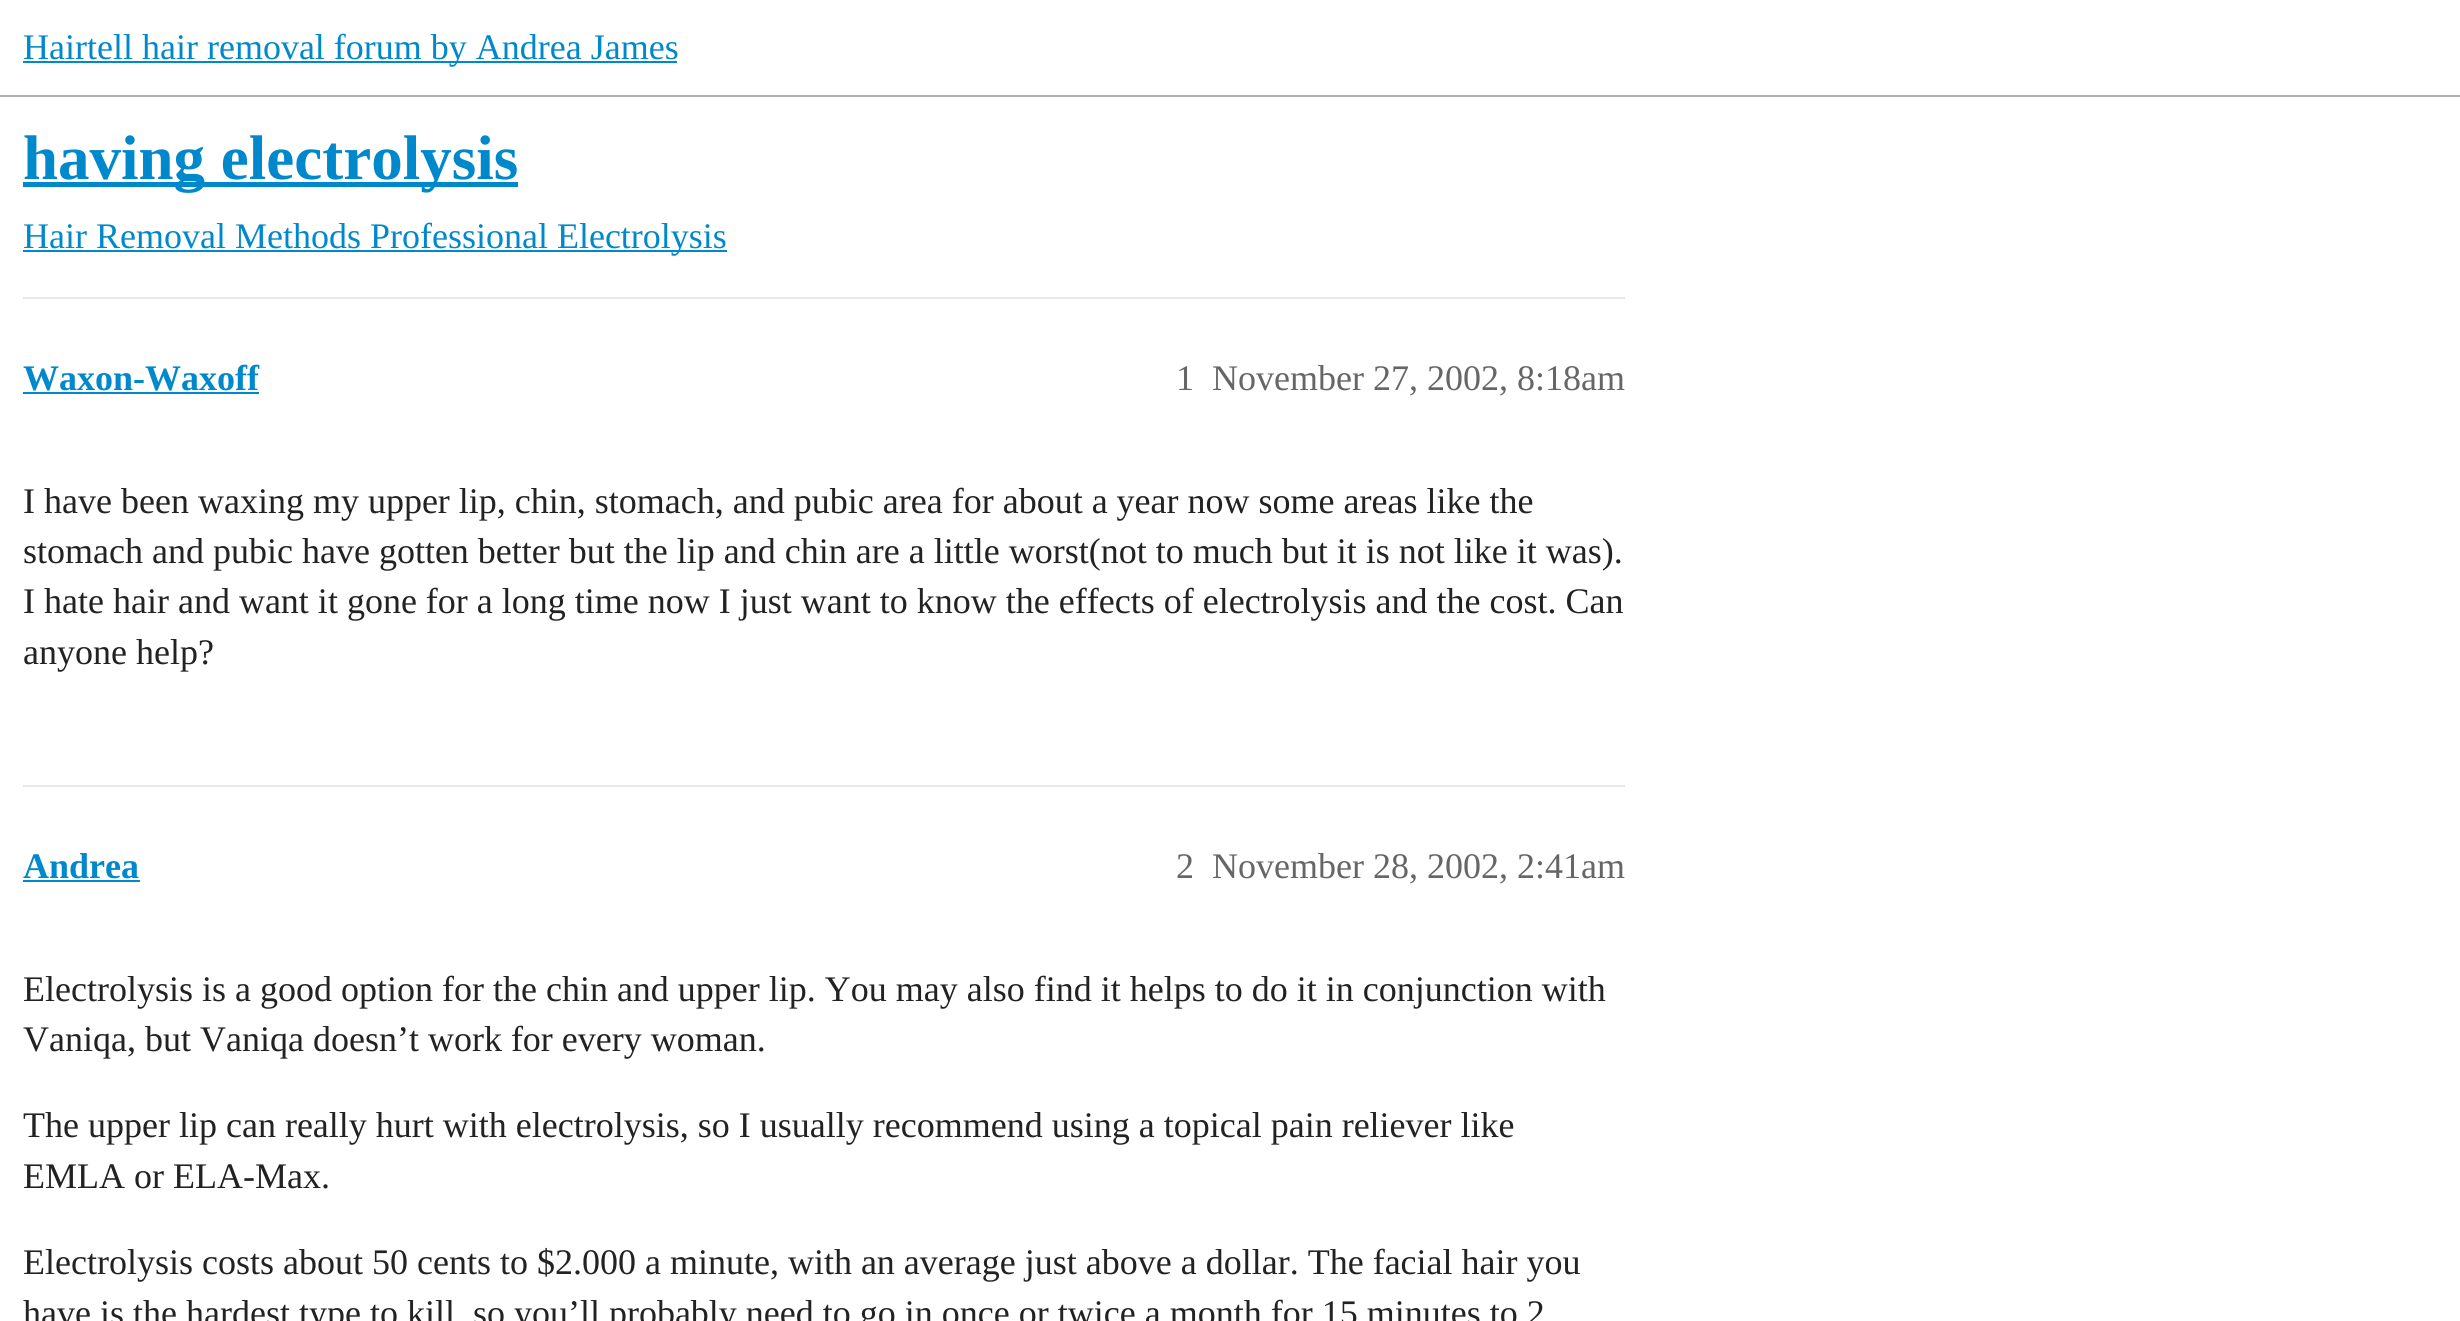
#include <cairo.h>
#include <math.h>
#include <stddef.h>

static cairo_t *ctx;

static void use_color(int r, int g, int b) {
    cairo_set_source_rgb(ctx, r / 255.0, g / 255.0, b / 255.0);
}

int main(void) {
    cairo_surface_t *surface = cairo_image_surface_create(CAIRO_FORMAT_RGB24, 2460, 1321);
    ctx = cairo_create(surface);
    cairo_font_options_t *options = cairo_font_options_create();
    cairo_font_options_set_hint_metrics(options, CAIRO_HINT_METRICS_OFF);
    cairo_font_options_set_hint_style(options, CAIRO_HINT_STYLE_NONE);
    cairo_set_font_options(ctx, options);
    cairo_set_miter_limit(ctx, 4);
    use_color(255, 255, 255);
    cairo_paint(ctx);
    use_color(175, 175, 175);
    cairo_rectangle(ctx, 0, 95, 2460, 2);
    cairo_fill(ctx);
    use_color(0, 136, 204);
    cairo_rectangle(ctx, 23, 61, 654, 2);
    cairo_fill(ctx);
    cairo_select_font_face(ctx, "Liberation Serif", CAIRO_FONT_SLANT_NORMAL, CAIRO_FONT_WEIGHT_NORMAL);
    cairo_set_font_size(ctx, 36);
    cairo_move_to(ctx, 23, 59);
    cairo_show_text(ctx, "Hairtell hair removal forum by Andrea James");
    cairo_rectangle(ctx, 23, 182, 495, 5);
    cairo_fill(ctx);
    cairo_select_font_face(ctx, "Liberation Serif", CAIRO_FONT_SLANT_NORMAL, CAIRO_FONT_WEIGHT_BOLD);
    cairo_set_font_size(ctx, 63);
    cairo_move_to(ctx, 23, 179);
    cairo_show_text(ctx, "having electrolysis");
    cairo_rectangle(ctx, 23, 250, 704, 2);
    cairo_fill(ctx);
    cairo_select_font_face(ctx, "Liberation Serif", CAIRO_FONT_SLANT_NORMAL, CAIRO_FONT_WEIGHT_NORMAL);
    cairo_set_font_size(ctx, 36);
    cairo_move_to(ctx, 23, 248);
    cairo_show_text(ctx, "Hair Removal Methods Professional Electrolysis");
    use_color(233, 233, 233);
    cairo_rectangle(ctx, 23, 297, 1602, 2);
    cairo_fill(ctx);
    cairo_select_font_face(ctx, "Liberation Serif", CAIRO_FONT_SLANT_NORMAL, CAIRO_FONT_WEIGHT_BOLD);
    use_color(0, 136, 204);
    cairo_move_to(ctx, 23, 390);
    cairo_show_text(ctx, "Waxon-Waxoff");
    cairo_rectangle(ctx, 23, 392, 236, 2);
    cairo_fill(ctx);
    cairo_select_font_face(ctx, "Liberation Serif", CAIRO_FONT_SLANT_NORMAL, CAIRO_FONT_WEIGHT_NORMAL);
    use_color(102, 102, 102);
    cairo_move_to(ctx, 1176, 390);
    cairo_show_text(ctx, "1");
    cairo_move_to(ctx, 1212, 390);
    cairo_show_text(ctx, "November 27, 2002, 8:18am");
    use_color(34, 34, 34);
    cairo_move_to(ctx, 23, 513);
    cairo_show_text(ctx, "I have been waxing my upper lip, chin, stomach, and pubic area for about a year now some areas like the");
    cairo_move_to(ctx, 23, 563);
    cairo_show_text(ctx, "stomach and pubic have gotten better but the lip and chin are a little worst(not to much but it is not like it was).");
    cairo_move_to(ctx, 23, 613);
    cairo_show_text(ctx, "I hate hair and want it gone for a long time now I just want to know the effects of electrolysis and the cost. Can");
    cairo_move_to(ctx, 23, 664);
    cairo_show_text(ctx, "anyone help?");
    use_color(233, 233, 233);
    cairo_rectangle(ctx, 23, 785, 1602, 2);
    cairo_fill(ctx);
    cairo_select_font_face(ctx, "Liberation Serif", CAIRO_FONT_SLANT_NORMAL, CAIRO_FONT_WEIGHT_BOLD);
    use_color(0, 136, 204);
    cairo_move_to(ctx, 23, 878);
    cairo_show_text(ctx, "Andrea");
    cairo_rectangle(ctx, 23, 880, 117, 2);
    cairo_fill(ctx);
    cairo_select_font_face(ctx, "Liberation Serif", CAIRO_FONT_SLANT_NORMAL, CAIRO_FONT_WEIGHT_NORMAL);
    use_color(102, 102, 102);
    cairo_move_to(ctx, 1176, 878);
    cairo_show_text(ctx, "2");
    cairo_move_to(ctx, 1212, 878);
    cairo_show_text(ctx, "November 28, 2002, 2:41am");
    use_color(34, 34, 34);
    cairo_move_to(ctx, 23, 1001);
    cairo_show_text(ctx, "Electrolysis is a good option for the chin and upper lip. You may also find it helps to do it in conjunction with");
    cairo_move_to(ctx, 23, 1051);
    cairo_show_text(ctx, "Vaniqa, but Vaniqa doesn’t work for every woman.");
    cairo_move_to(ctx, 23, 1137);
    cairo_show_text(ctx, "The upper lip can really hurt with electrolysis, so I usually recommend using a topical pain reliever like");
    cairo_move_to(ctx, 23, 1188);
    cairo_show_text(ctx, "EMLA or ELA-Max.");
    cairo_move_to(ctx, 23, 1274);
    cairo_show_text(ctx, "Electrolysis costs about 50 cents to $2.000 a minute, with an average just above a dollar. The facial hair you");
    cairo_move_to(ctx, 23, 1325);
    cairo_show_text(ctx, "have is the hardest type to kill, so you’ll probably need to go in once or twice a month for 15 minutes to 2");
    cairo_surface_write_to_png(surface, "result.png");
    cairo_font_options_destroy(options);
    cairo_destroy(ctx);
    cairo_surface_destroy(surface);
    return 0;
}
